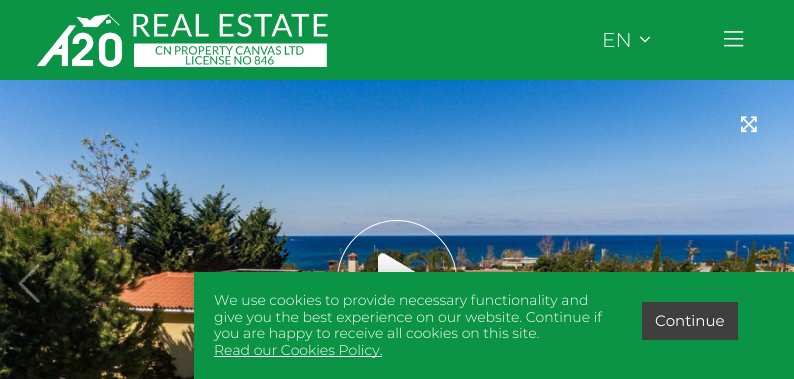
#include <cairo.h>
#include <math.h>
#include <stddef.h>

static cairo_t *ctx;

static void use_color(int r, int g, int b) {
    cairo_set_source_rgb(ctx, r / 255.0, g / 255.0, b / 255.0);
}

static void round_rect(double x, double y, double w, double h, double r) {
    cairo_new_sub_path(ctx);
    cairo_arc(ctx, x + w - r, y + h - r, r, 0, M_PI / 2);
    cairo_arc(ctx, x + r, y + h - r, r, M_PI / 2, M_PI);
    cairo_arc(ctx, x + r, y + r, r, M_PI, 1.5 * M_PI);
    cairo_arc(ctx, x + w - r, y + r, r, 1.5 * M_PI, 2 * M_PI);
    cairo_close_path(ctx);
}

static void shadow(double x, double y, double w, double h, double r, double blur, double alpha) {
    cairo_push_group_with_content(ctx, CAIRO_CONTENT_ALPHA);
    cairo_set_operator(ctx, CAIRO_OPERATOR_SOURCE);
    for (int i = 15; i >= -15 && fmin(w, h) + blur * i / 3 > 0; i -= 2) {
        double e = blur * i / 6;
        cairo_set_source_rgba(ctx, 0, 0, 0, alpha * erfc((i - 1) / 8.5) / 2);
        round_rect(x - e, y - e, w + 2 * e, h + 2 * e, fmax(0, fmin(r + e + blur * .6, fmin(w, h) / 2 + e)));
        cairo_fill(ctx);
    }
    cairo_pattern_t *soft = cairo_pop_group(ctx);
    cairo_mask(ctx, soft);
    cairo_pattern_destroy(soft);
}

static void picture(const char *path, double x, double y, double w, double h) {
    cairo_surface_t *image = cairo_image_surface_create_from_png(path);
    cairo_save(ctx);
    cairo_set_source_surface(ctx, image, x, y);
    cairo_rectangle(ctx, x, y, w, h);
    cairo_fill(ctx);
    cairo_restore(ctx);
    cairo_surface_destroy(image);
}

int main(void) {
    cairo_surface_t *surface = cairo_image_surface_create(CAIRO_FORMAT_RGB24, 794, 379);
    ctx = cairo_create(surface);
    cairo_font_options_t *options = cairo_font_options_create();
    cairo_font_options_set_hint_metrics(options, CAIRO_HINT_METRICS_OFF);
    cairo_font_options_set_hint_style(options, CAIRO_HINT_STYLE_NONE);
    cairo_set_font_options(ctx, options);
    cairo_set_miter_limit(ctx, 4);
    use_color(11, 148, 69);
    cairo_paint(ctx);
    picture("img1.png", 37, 13, 291, 54);
    cairo_select_font_face(ctx, "Montserrat Light", CAIRO_FONT_SLANT_NORMAL, CAIRO_FONT_WEIGHT_NORMAL);
    cairo_set_font_size(ctx, 20);
    use_color(255, 255, 255);
    cairo_move_to(ctx, 602, 47);
    cairo_show_text(ctx, "EN");
    picture("img2.png", 640, 36, 10, 7);
    picture("img3.png", 724, 31, 20, 16);
    picture("img4.png", 0, 80, 794, 299);
    cairo_arc(ctx, 397, 280, 59.5, 0, 2 * M_PI);
    cairo_set_line_width(ctx, 1);
    cairo_stroke(ctx);
    picture("img5.png", 378, 253, 38, 19);
    picture("img6.png", 18, 263, 22, 40);
    picture("img7.png", 755, 263, 11, 9);
    picture("img8.png", 741, 116, 16, 17);
    use_color(0, 0, 0);
    shadow(194, 272, 600, 107, 0, 15, 0.2);
    use_color(11, 148, 69);
    cairo_rectangle(ctx, 194, 272, 600, 107);
    cairo_fill(ctx);
    cairo_set_font_size(ctx, 14);
    use_color(255, 255, 255);
    cairo_move_to(ctx, 214, 305);
    cairo_show_text(ctx, "We use cookies to provide necessary functionality and");
    cairo_move_to(ctx, 214, 322);
    cairo_show_text(ctx, "give you the best experience on our website. Continue if");
    cairo_move_to(ctx, 214, 338);
    cairo_show_text(ctx, "you are happy to receive all cookies on this site.");
    cairo_rectangle(ctx, 214, 356, 168, 1);
    cairo_fill(ctx);
    cairo_move_to(ctx, 214, 355);
    cairo_show_text(ctx, "Read our Cookies Policy.");
    use_color(63, 63, 63);
    cairo_rectangle(ctx, 642, 302, 96, 38);
    cairo_fill(ctx);
    cairo_select_font_face(ctx, "Montserrat", CAIRO_FONT_SLANT_NORMAL, CAIRO_FONT_WEIGHT_NORMAL);
    cairo_set_font_size(ctx, 15);
    use_color(255, 255, 255);
    cairo_move_to(ctx, 655, 326);
    cairo_show_text(ctx, "Continue");
    cairo_surface_write_to_png(surface, "result.png");
    cairo_font_options_destroy(options);
    cairo_destroy(ctx);
    cairo_surface_destroy(surface);
    return 0;
}
